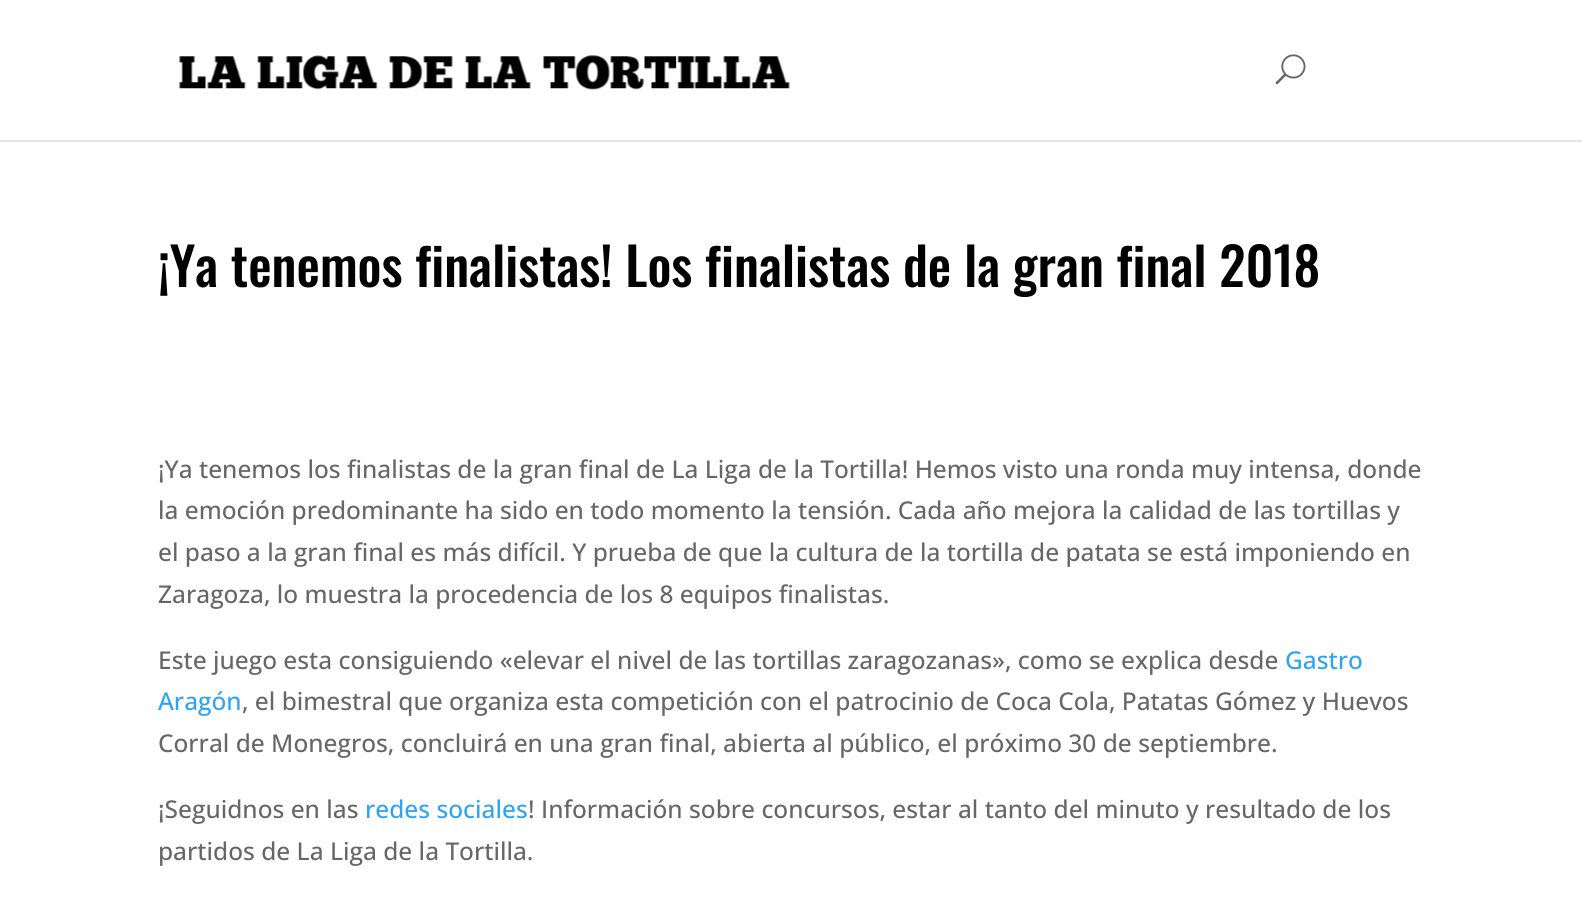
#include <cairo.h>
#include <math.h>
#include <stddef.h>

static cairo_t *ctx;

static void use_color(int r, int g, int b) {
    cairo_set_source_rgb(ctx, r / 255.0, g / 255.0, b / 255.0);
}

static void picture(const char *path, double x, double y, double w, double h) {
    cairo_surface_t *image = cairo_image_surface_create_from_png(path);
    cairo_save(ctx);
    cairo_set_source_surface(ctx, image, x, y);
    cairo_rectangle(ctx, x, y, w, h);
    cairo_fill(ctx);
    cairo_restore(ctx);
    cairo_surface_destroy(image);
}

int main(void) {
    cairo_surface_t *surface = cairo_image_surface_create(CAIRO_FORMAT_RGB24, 1582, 917);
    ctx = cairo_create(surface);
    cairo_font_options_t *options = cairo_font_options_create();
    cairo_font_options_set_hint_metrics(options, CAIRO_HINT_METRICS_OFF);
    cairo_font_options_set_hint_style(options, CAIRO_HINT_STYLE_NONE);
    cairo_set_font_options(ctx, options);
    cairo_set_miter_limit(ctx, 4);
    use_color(255, 255, 255);
    cairo_paint(ctx);
    use_color(230, 230, 230);
    cairo_rectangle(ctx, 0, 140, 1582, 2);
    cairo_fill(ctx);
    picture("img1.png", 178, 55, 612, 35);
    picture("img2.png", 1275, 54, 31, 31);
    cairo_select_font_face(ctx, "Oswald Medium", CAIRO_FONT_SLANT_NORMAL, CAIRO_FONT_WEIGHT_NORMAL);
    cairo_set_font_size(ctx, 52.5);
    use_color(0, 0, 0);
    cairo_move_to(ctx, 158, 287);
    cairo_show_text(ctx, "¡Ya tenemos finalistas! Los finalistas de la gran final 2018");
    cairo_select_font_face(ctx, "Open Sans Medium", CAIRO_FONT_SLANT_NORMAL, CAIRO_FONT_WEIGHT_NORMAL);
    cairo_set_font_size(ctx, 24.5);
    use_color(102, 102, 102);
    cairo_move_to(ctx, 158, 478);
    cairo_show_text(ctx, "¡Ya tenemos los finalistas de la gran final de La Liga de la Tortilla! Hemos visto una ronda muy intensa, donde");
    cairo_move_to(ctx, 158, 519);
    cairo_show_text(ctx, "la emoción predominante ha sido en todo momento la tensión. Cada año mejora la calidad de las tortillas y");
    cairo_move_to(ctx, 158, 561);
    cairo_show_text(ctx, "el paso a la gran final es más difícil. Y prueba de que la cultura de la tortilla de patata se está imponiendo en");
    cairo_move_to(ctx, 158, 603);
    cairo_show_text(ctx, "Zaragoza, lo muestra la procedencia de los 8 equipos finalistas.");
    cairo_move_to(ctx, 158, 669);
    cairo_show_text(ctx, "Este juego esta consiguiendo «elevar el nivel de las tortillas zaragozanas», como se explica desde");
    use_color(46, 163, 242);
    cairo_move_to(ctx, 1285, 669);
    cairo_show_text(ctx, "Gastro");
    cairo_move_to(ctx, 158, 710);
    cairo_show_text(ctx, "Aragón");
    use_color(102, 102, 102);
    cairo_move_to(ctx, 242, 710);
    cairo_show_text(ctx, ", el bimestral que organiza esta competición con el patrocinio de Coca Cola, Patatas Gómez y Huevos");
    cairo_move_to(ctx, 158, 752);
    cairo_show_text(ctx, "Corral de Monegros, concluirá en una gran final, abierta al público, el próximo 30 de septiembre.");
    cairo_move_to(ctx, 158, 818);
    cairo_show_text(ctx, "¡Seguidnos en las");
    use_color(46, 163, 242);
    cairo_move_to(ctx, 365, 818);
    cairo_show_text(ctx, "redes sociales");
    use_color(102, 102, 102);
    cairo_move_to(ctx, 528, 818);
    cairo_show_text(ctx, "! Información sobre concursos, estar al tanto del minuto y resultado de los");
    cairo_move_to(ctx, 158, 860);
    cairo_show_text(ctx, "partidos de La Liga de la Tortilla.");
    cairo_surface_write_to_png(surface, "result.png");
    cairo_font_options_destroy(options);
    cairo_destroy(ctx);
    cairo_surface_destroy(surface);
    return 0;
}
